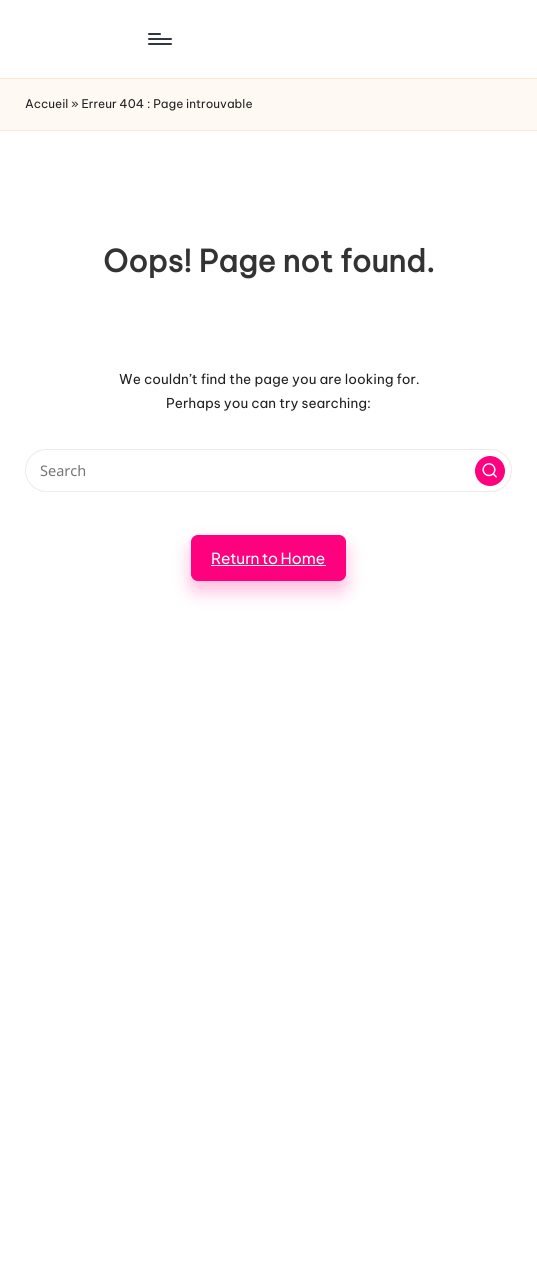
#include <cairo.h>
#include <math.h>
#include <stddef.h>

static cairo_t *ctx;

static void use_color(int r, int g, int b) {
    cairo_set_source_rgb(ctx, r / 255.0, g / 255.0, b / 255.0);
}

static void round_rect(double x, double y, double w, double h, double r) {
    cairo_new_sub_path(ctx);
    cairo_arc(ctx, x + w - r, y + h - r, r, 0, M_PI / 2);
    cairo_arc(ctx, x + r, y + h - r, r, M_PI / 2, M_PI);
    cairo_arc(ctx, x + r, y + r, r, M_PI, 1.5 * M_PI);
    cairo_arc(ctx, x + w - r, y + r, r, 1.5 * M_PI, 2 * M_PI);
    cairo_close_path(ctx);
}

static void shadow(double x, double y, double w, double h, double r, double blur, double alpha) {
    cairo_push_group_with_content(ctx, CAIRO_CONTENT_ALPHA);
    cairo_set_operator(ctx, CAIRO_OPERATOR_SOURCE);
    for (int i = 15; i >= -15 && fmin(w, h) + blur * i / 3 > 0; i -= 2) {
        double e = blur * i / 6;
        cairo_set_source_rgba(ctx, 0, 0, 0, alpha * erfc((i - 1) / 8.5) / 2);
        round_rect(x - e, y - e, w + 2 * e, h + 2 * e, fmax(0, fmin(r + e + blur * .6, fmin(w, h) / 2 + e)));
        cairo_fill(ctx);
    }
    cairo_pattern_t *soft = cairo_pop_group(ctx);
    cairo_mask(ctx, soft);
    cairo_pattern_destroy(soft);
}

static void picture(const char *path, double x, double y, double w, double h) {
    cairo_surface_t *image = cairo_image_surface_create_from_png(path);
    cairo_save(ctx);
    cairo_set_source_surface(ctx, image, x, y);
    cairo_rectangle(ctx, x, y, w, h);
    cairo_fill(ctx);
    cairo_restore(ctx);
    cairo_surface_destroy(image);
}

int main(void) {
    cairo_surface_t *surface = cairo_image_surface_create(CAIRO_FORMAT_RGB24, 537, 1282);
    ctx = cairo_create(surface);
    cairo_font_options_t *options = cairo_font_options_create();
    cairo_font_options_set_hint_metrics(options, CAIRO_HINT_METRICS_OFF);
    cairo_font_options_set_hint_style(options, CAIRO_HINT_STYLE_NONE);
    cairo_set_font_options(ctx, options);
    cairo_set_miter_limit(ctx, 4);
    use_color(255, 255, 255);
    cairo_paint(ctx);
    use_color(48, 55, 62);
    round_rect(148, 38, 24, 2, 1);
    cairo_fill(ctx);
    round_rect(148, 33, 13, 2, 1);
    cairo_fill(ctx);
    round_rect(148, 43, 24, 2, 1);
    cairo_fill(ctx);
    use_color(255, 249, 243);
    cairo_rectangle(ctx, 0, 79, 537, 51);
    cairo_fill(ctx);
    use_color(255, 231, 210);
    cairo_rectangle(ctx, 0, 78, 537, 1);
    cairo_fill(ctx);
    cairo_rectangle(ctx, 0, 130, 537, 1);
    cairo_fill(ctx);
    cairo_select_font_face(ctx, "Be Vietnam Pro", CAIRO_FONT_SLANT_NORMAL, CAIRO_FONT_WEIGHT_NORMAL);
    cairo_set_font_size(ctx, 11.9);
    use_color(33, 33, 33);
    cairo_move_to(ctx, 25, 108);
    cairo_show_text(ctx, "Accueil");
    cairo_move_to(ctx, 71, 108);
    cairo_show_text(ctx, "» Erreur 404 : Page introuvable");
    cairo_select_font_face(ctx, "Be Vietnam Pro", CAIRO_FONT_SLANT_NORMAL, CAIRO_FONT_WEIGHT_BOLD);
    cairo_set_font_size(ctx, 30.5);
    use_color(51, 51, 51);
    cairo_move_to(ctx, 103, 272);
    cairo_show_text(ctx, "Oops! Page not found.");
    cairo_select_font_face(ctx, "Be Vietnam Pro", CAIRO_FONT_SLANT_NORMAL, CAIRO_FONT_WEIGHT_NORMAL);
    cairo_set_font_size(ctx, 13.6);
    use_color(33, 33, 33);
    cairo_move_to(ctx, 119, 384);
    cairo_show_text(ctx, "We couldn’t find the page you are looking for.");
    cairo_move_to(ctx, 166, 408);
    cairo_show_text(ctx, "Perhaps you can try searching:");
    round_rect(25.5, 449.5, 486, 42, 21);
    use_color(235, 235, 235);
    cairo_set_line_width(ctx, 1);
    cairo_stroke(ctx);
    cairo_select_font_face(ctx, "Noto Sans", CAIRO_FONT_SLANT_NORMAL, CAIRO_FONT_WEIGHT_NORMAL);
    cairo_set_font_size(ctx, 14.5);
    use_color(117, 117, 117);
    cairo_move_to(ctx, 40, 476);
    cairo_show_text(ctx, "Search");
    use_color(255, 0, 127);
    cairo_new_path(ctx);
    cairo_arc(ctx, 490, 471, 15, 0, 2 * M_PI);
    cairo_fill(ctx);
    picture("img1.png", 482, 463, 15, 15);
    use_color(255, 0, 127);
    shadow(191, 545, 155, 46, 7, 9, 0.27);
    use_color(255, 0, 127);
    round_rect(191.5, 535.5, 154, 45, 6.5);
    cairo_fill_preserve(ctx);
    cairo_stroke(ctx);
    cairo_select_font_face(ctx, "Plus Jakarta Sans Medium", CAIRO_FONT_SLANT_NORMAL, CAIRO_FONT_WEIGHT_NORMAL);
    cairo_set_font_size(ctx, 15.25);
    use_color(255, 255, 255);
    cairo_move_to(ctx, 211, 564);
    cairo_show_text(ctx, "Return to Home");
    cairo_rectangle(ctx, 211, 565, 115, 1);
    cairo_fill(ctx);
    cairo_surface_write_to_png(surface, "result.png");
    cairo_font_options_destroy(options);
    cairo_destroy(ctx);
    cairo_surface_destroy(surface);
    return 0;
}
